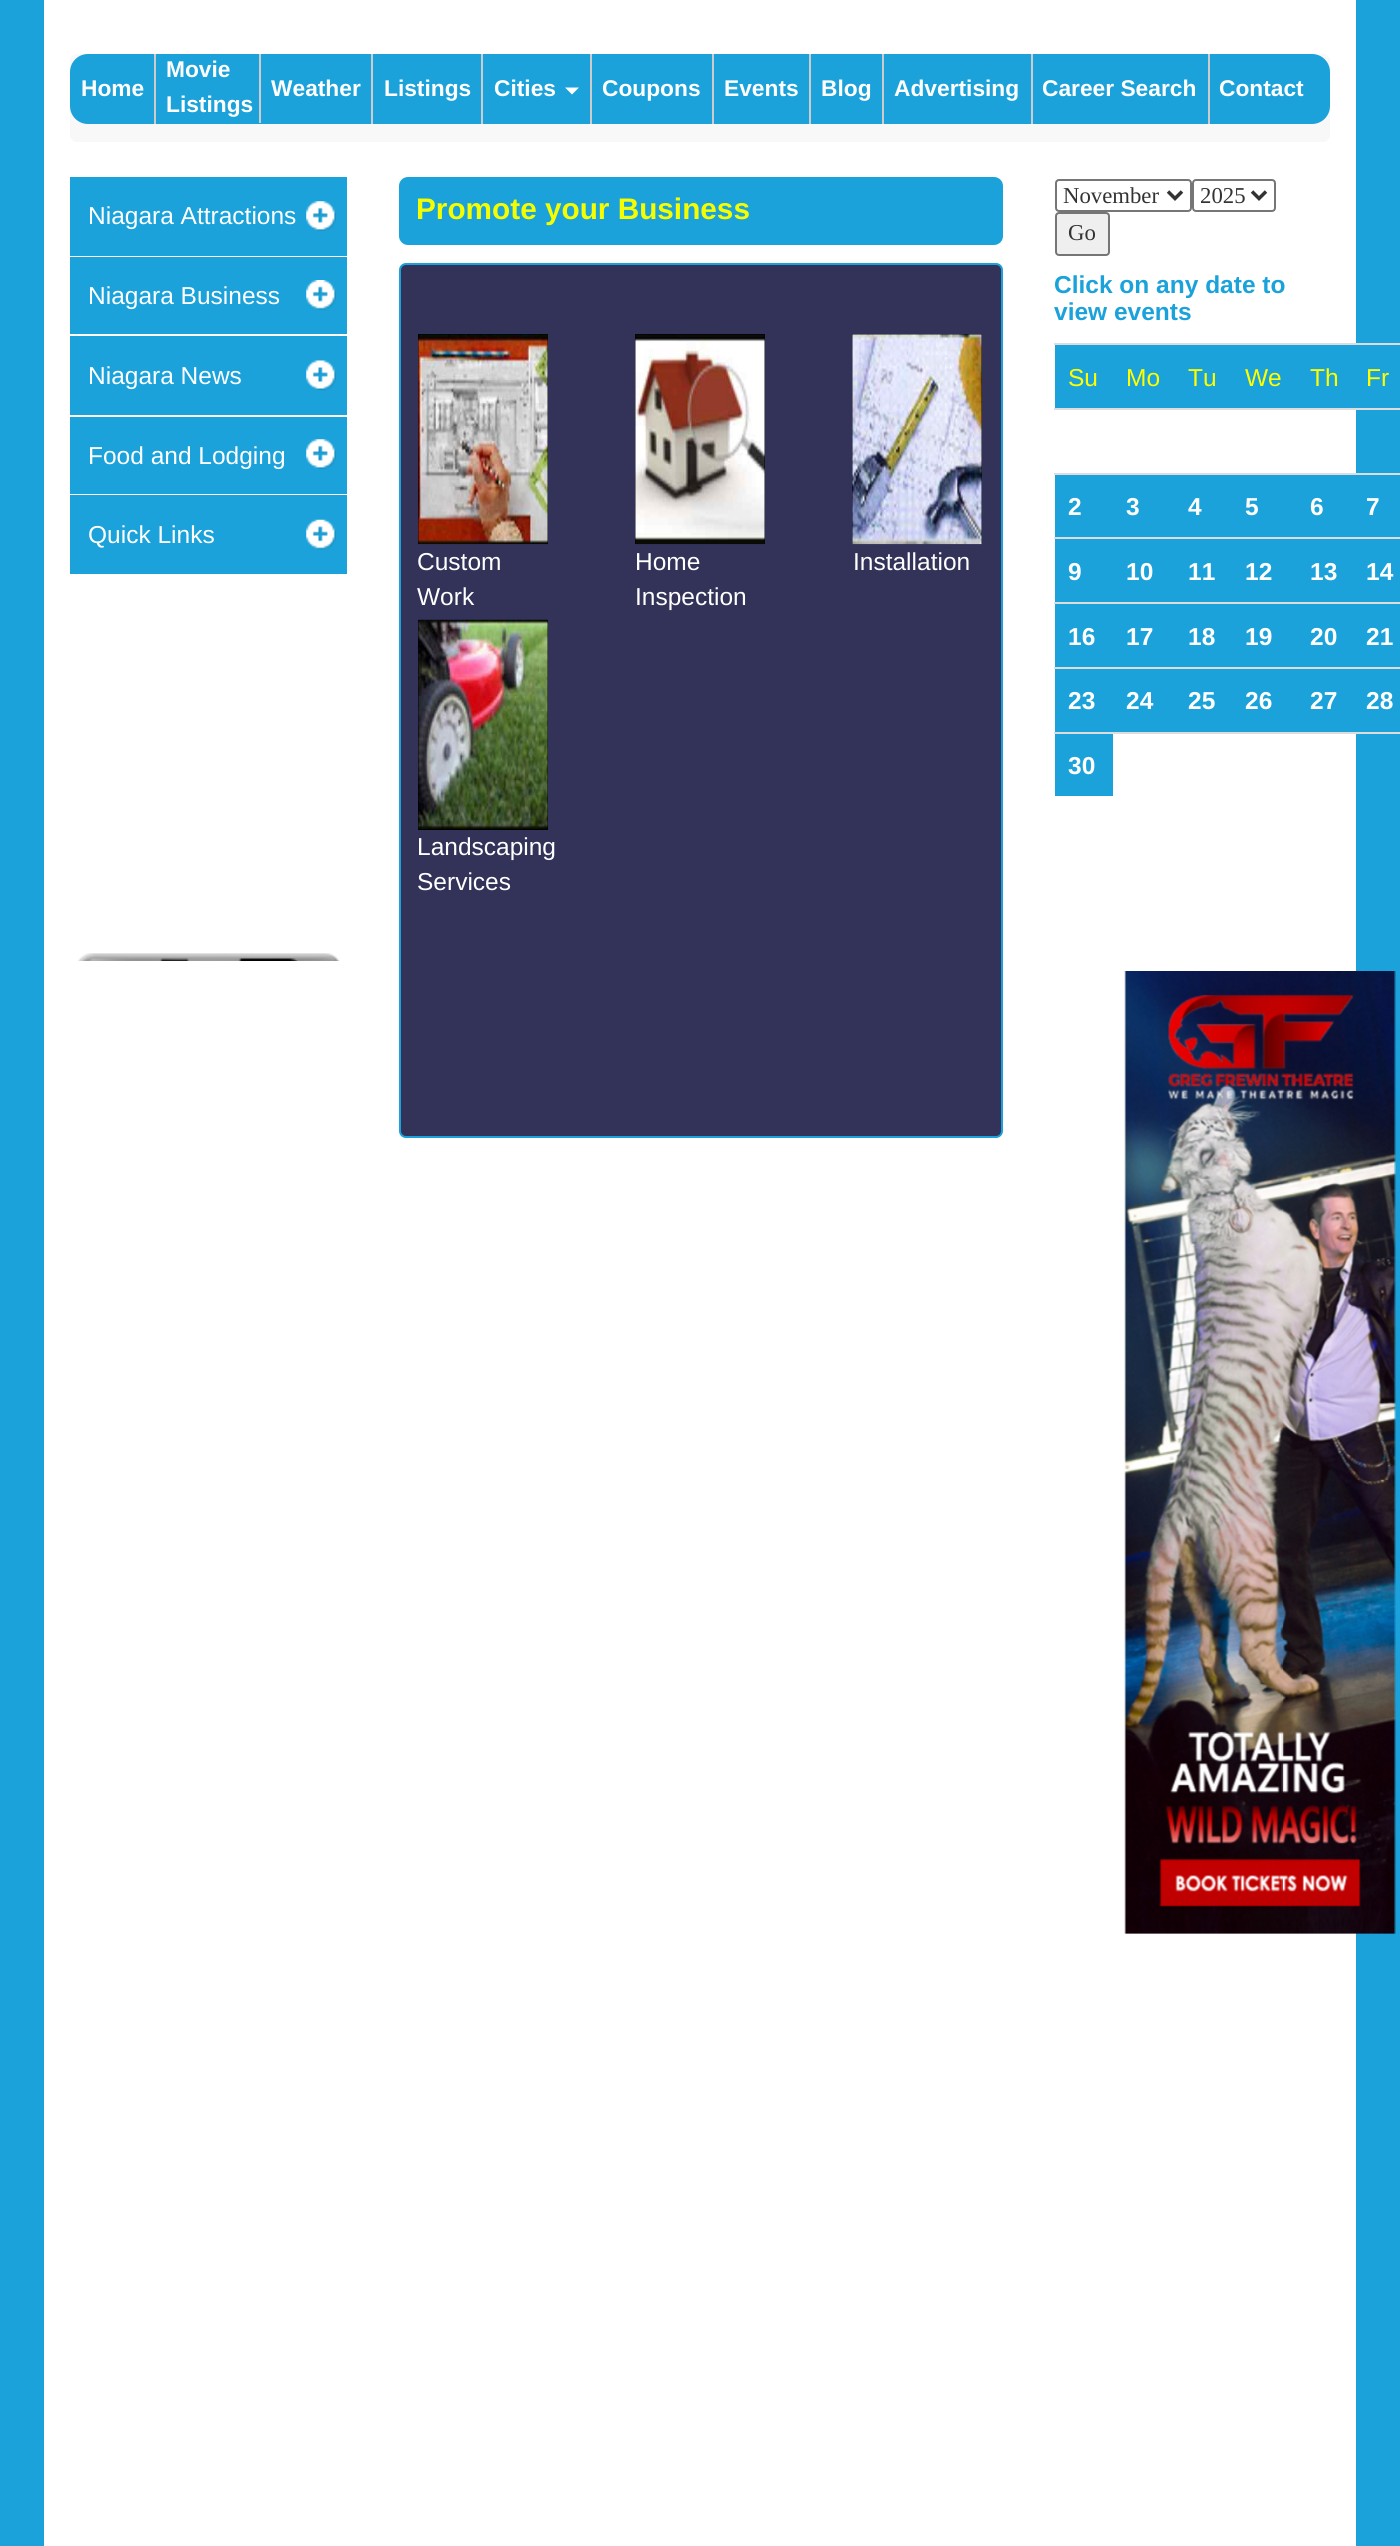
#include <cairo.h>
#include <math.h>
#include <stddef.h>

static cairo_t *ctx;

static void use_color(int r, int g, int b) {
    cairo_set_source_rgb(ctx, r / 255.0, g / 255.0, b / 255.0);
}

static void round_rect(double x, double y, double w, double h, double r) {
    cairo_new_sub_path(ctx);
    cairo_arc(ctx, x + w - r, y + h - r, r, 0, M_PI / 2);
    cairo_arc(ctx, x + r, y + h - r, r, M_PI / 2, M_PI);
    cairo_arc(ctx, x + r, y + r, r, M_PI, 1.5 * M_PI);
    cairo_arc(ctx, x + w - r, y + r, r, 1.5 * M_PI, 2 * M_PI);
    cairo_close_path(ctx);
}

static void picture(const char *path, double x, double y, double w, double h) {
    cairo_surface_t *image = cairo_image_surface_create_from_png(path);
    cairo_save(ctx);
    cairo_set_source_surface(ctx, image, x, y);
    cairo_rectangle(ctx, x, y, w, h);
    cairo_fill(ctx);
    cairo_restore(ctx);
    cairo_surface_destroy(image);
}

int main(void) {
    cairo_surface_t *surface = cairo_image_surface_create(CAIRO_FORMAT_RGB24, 1400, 2546);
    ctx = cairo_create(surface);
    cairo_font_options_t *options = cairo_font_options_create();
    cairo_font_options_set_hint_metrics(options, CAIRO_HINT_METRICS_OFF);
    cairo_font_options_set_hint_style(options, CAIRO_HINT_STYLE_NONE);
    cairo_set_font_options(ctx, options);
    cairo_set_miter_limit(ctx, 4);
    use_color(27, 162, 218);
    cairo_paint(ctx);
    use_color(255, 255, 255);
    cairo_rectangle(ctx, 44, 0, 1312, 2546);
    cairo_fill(ctx);
    use_color(248, 248, 248);
    round_rect(70, 54, 1260, 88, 7);
    cairo_fill(ctx);
    use_color(27, 162, 218);
    round_rect(70, 54, 1260, 70, 18);
    cairo_fill(ctx);
    use_color(204, 204, 204);
    cairo_rectangle(ctx, 154, 54, 2, 70);
    cairo_fill(ctx);
    cairo_select_font_face(ctx, "Liberation Sans", CAIRO_FONT_SLANT_NORMAL, CAIRO_FONT_WEIGHT_BOLD);
    cairo_set_font_size(ctx, 22.75);
    use_color(255, 255, 255);
    cairo_move_to(ctx, 81, 96);
    cairo_show_text(ctx, "Home");
    use_color(204, 204, 204);
    cairo_rectangle(ctx, 259, 54, 2, 69);
    cairo_fill(ctx);
    use_color(255, 255, 255);
    cairo_move_to(ctx, 166, 77);
    cairo_show_text(ctx, "Movie");
    cairo_move_to(ctx, 166, 112);
    cairo_show_text(ctx, "Listings");
    use_color(204, 204, 204);
    cairo_rectangle(ctx, 371, 54, 2, 70);
    cairo_fill(ctx);
    use_color(255, 255, 255);
    cairo_move_to(ctx, 271, 96);
    cairo_show_text(ctx, "Weather");
    use_color(204, 204, 204);
    cairo_rectangle(ctx, 481, 54, 2, 70);
    cairo_fill(ctx);
    use_color(255, 255, 255);
    cairo_move_to(ctx, 384, 96);
    cairo_show_text(ctx, "Listings");
    use_color(204, 204, 204);
    cairo_rectangle(ctx, 590, 54, 2, 70);
    cairo_fill(ctx);
    use_color(255, 255, 255);
    cairo_move_to(ctx, 494, 96);
    cairo_show_text(ctx, "Cities");
    cairo_new_path(ctx);
    cairo_move_to(ctx, 565, 87.5);
    cairo_line_to(ctx, 579, 87.5);
    cairo_line_to(ctx, 572, 94.5);
    cairo_close_path(ctx);
    cairo_fill(ctx);
    use_color(204, 204, 204);
    cairo_rectangle(ctx, 712, 54, 2, 70);
    cairo_fill(ctx);
    use_color(255, 255, 255);
    cairo_move_to(ctx, 602, 96);
    cairo_show_text(ctx, "Coupons");
    use_color(204, 204, 204);
    cairo_rectangle(ctx, 809, 54, 2, 70);
    cairo_fill(ctx);
    use_color(255, 255, 255);
    cairo_move_to(ctx, 724, 96);
    cairo_show_text(ctx, "Events");
    use_color(204, 204, 204);
    cairo_rectangle(ctx, 882, 54, 2, 70);
    cairo_fill(ctx);
    use_color(255, 255, 255);
    cairo_move_to(ctx, 821, 96);
    cairo_show_text(ctx, "Blog");
    use_color(204, 204, 204);
    cairo_rectangle(ctx, 1031, 54, 2, 70);
    cairo_fill(ctx);
    use_color(255, 255, 255);
    cairo_move_to(ctx, 894, 96);
    cairo_show_text(ctx, "Advertising");
    use_color(204, 204, 204);
    cairo_rectangle(ctx, 1208, 54, 2, 70);
    cairo_fill(ctx);
    use_color(255, 255, 255);
    cairo_move_to(ctx, 1042, 96);
    cairo_show_text(ctx, "Career Search");
    cairo_move_to(ctx, 1219, 96);
    cairo_show_text(ctx, "Contact");
    use_color(27, 162, 218);
    cairo_rectangle(ctx, 70, 177, 277, 79);
    cairo_fill(ctx);
    picture("img1.png", 306, 201, 30, 30);
    cairo_select_font_face(ctx, "Liberation Sans", CAIRO_FONT_SLANT_NORMAL, CAIRO_FONT_WEIGHT_NORMAL);
    cairo_set_font_size(ctx, 24.5);
    use_color(255, 255, 255);
    cairo_move_to(ctx, 88, 224);
    cairo_show_text(ctx, "Niagara Attractions");
    use_color(27, 162, 218);
    cairo_rectangle(ctx, 70, 257, 277, 77);
    cairo_fill(ctx);
    picture("img2.png", 306, 280, 30, 30);
    use_color(255, 255, 255);
    cairo_move_to(ctx, 88, 304);
    cairo_show_text(ctx, "Niagara Business");
    use_color(27, 162, 218);
    cairo_rectangle(ctx, 70, 336, 277, 79);
    cairo_fill(ctx);
    picture("img3.png", 306, 360, 30, 31);
    use_color(255, 255, 255);
    cairo_move_to(ctx, 88, 384);
    cairo_show_text(ctx, "Niagara News");
    use_color(27, 162, 218);
    cairo_rectangle(ctx, 70, 417, 277, 77);
    cairo_fill(ctx);
    picture("img1.png", 306, 439, 30, 30);
    use_color(255, 255, 255);
    cairo_move_to(ctx, 88, 464);
    cairo_show_text(ctx, "Food and Lodging");
    use_color(27, 162, 218);
    cairo_rectangle(ctx, 70, 495, 277, 79);
    cairo_fill(ctx);
    picture("img4.png", 306, 519, 30, 31);
    use_color(255, 255, 255);
    cairo_move_to(ctx, 88, 543);
    cairo_show_text(ctx, "Quick Links");
    picture("img5.png", 78, 953, 262, 8);
    use_color(27, 162, 218);
    round_rect(399, 177, 604, 68, 9);
    cairo_fill(ctx);
    cairo_select_font_face(ctx, "Liberation Sans", CAIRO_FONT_SLANT_NORMAL, CAIRO_FONT_WEIGHT_BOLD);
    cairo_set_font_size(ctx, 29.75);
    use_color(245, 254, 0);
    cairo_move_to(ctx, 416, 219);
    cairo_show_text(ctx, "Promote your Business");
    use_color(51, 51, 90);
    round_rect(400, 264, 602, 873, 6);
    cairo_fill_preserve(ctx);
    use_color(27, 162, 218);
    cairo_stroke(ctx);
    use_color(0, 0, 0);
    cairo_rectangle(ctx, 418, 334, 130, 210);
    cairo_fill(ctx);
    picture("img6.png", 418, 334, 130, 211);
    cairo_select_font_face(ctx, "Liberation Sans", CAIRO_FONT_SLANT_NORMAL, CAIRO_FONT_WEIGHT_NORMAL);
    cairo_set_font_size(ctx, 24.5);
    use_color(255, 255, 255);
    cairo_move_to(ctx, 417, 570);
    cairo_show_text(ctx, "Custom");
    cairo_move_to(ctx, 417, 605);
    cairo_show_text(ctx, "Work");
    use_color(0, 0, 0);
    cairo_rectangle(ctx, 635, 334, 130, 210);
    cairo_fill(ctx);
    picture("img7.png", 635, 334, 130, 211);
    use_color(255, 255, 255);
    cairo_move_to(ctx, 635, 570);
    cairo_show_text(ctx, "Home");
    cairo_move_to(ctx, 635, 605);
    cairo_show_text(ctx, "Inspection");
    use_color(0, 0, 0);
    cairo_rectangle(ctx, 852, 334, 130, 210);
    cairo_fill(ctx);
    picture("img8.png", 852, 334, 130, 211);
    use_color(255, 255, 255);
    cairo_move_to(ctx, 853, 570);
    cairo_show_text(ctx, "Installation");
    use_color(0, 0, 0);
    cairo_rectangle(ctx, 418, 620, 130, 210);
    cairo_fill(ctx);
    picture("img9.png", 418, 619, 130, 211);
    use_color(255, 255, 255);
    cairo_move_to(ctx, 417, 855);
    cairo_show_text(ctx, "Landscaping");
    cairo_move_to(ctx, 417, 890);
    cairo_show_text(ctx, "Services");
    round_rect(1056, 180, 135, 31, 3);
    use_color(118, 118, 118);
    cairo_stroke(ctx);
    cairo_new_path(ctx);
    cairo_move_to(ctx, 1168, 191.5);
    cairo_line_to(ctx, 1175, 198.5);
    cairo_line_to(ctx, 1182, 191.5);
    use_color(51, 51, 51);
    cairo_set_line_width(ctx, 3.5);
    cairo_stroke(ctx);
    cairo_select_font_face(ctx, "Liberation Serif", CAIRO_FONT_SLANT_NORMAL, CAIRO_FONT_WEIGHT_NORMAL);
    cairo_set_font_size(ctx, 22.75);
    cairo_move_to(ctx, 1063, 203);
    cairo_show_text(ctx, "November");
    round_rect(1193, 180, 82, 31, 3);
    use_color(118, 118, 118);
    cairo_set_line_width(ctx, 2);
    cairo_stroke(ctx);
    cairo_new_path(ctx);
    cairo_move_to(ctx, 1252, 191.5);
    cairo_line_to(ctx, 1259, 198.5);
    cairo_line_to(ctx, 1266, 191.5);
    use_color(51, 51, 51);
    cairo_set_line_width(ctx, 3.5);
    cairo_stroke(ctx);
    cairo_move_to(ctx, 1200, 203);
    cairo_show_text(ctx, "2025");
    use_color(239, 239, 239);
    round_rect(1056, 213, 53, 42, 3);
    cairo_fill_preserve(ctx);
    use_color(118, 118, 118);
    cairo_set_line_width(ctx, 2);
    cairo_stroke(ctx);
    use_color(51, 51, 51);
    cairo_move_to(ctx, 1068, 240);
    cairo_show_text(ctx, "Go");
    cairo_select_font_face(ctx, "Liberation Sans", CAIRO_FONT_SLANT_NORMAL, CAIRO_FONT_WEIGHT_BOLD);
    cairo_set_font_size(ctx, 24.5);
    use_color(27, 162, 218);
    cairo_move_to(ctx, 1054, 293);
    cairo_show_text(ctx, "Click on any date to");
    cairo_move_to(ctx, 1054, 320);
    cairo_show_text(ctx, "view events");
    cairo_rectangle(ctx, 1055, 345, 301, 63);
    cairo_fill(ctx);
    cairo_select_font_face(ctx, "Liberation Sans", CAIRO_FONT_SLANT_NORMAL, CAIRO_FONT_WEIGHT_NORMAL);
    use_color(255, 255, 0);
    cairo_move_to(ctx, 1068, 386);
    cairo_show_text(ctx, "Su");
    cairo_move_to(ctx, 1126, 386);
    cairo_show_text(ctx, "Mo");
    cairo_move_to(ctx, 1188, 386);
    cairo_show_text(ctx, "Tu");
    cairo_move_to(ctx, 1245, 386);
    cairo_show_text(ctx, "We");
    cairo_move_to(ctx, 1310, 386);
    cairo_show_text(ctx, "Th");
    use_color(221, 221, 221);
    cairo_rectangle(ctx, 1054, 343, 346, 2);
    cairo_fill(ctx);
    use_color(255, 255, 0);
    cairo_move_to(ctx, 1366, 386);
    cairo_show_text(ctx, "Fr");
    use_color(221, 221, 221);
    cairo_rectangle(ctx, 1054, 408, 346, 2);
    cairo_fill(ctx);
    use_color(27, 162, 218);
    cairo_rectangle(ctx, 1055, 475, 301, 62);
    cairo_fill(ctx);
    cairo_select_font_face(ctx, "Liberation Sans", CAIRO_FONT_SLANT_NORMAL, CAIRO_FONT_WEIGHT_BOLD);
    use_color(255, 255, 255);
    cairo_move_to(ctx, 1068, 515);
    cairo_show_text(ctx, "2");
    cairo_move_to(ctx, 1126, 515);
    cairo_show_text(ctx, "3");
    cairo_move_to(ctx, 1188, 515);
    cairo_show_text(ctx, "4");
    cairo_move_to(ctx, 1245, 515);
    cairo_show_text(ctx, "5");
    cairo_move_to(ctx, 1310, 515);
    cairo_show_text(ctx, "6");
    use_color(221, 221, 221);
    cairo_rectangle(ctx, 1054, 473, 346, 2);
    cairo_fill(ctx);
    use_color(255, 255, 255);
    cairo_move_to(ctx, 1366, 515);
    cairo_show_text(ctx, "7");
    use_color(27, 162, 218);
    cairo_rectangle(ctx, 1055, 539, 301, 63);
    cairo_fill(ctx);
    use_color(255, 255, 255);
    cairo_move_to(ctx, 1068, 580);
    cairo_show_text(ctx, "9");
    cairo_move_to(ctx, 1126, 580);
    cairo_show_text(ctx, "10");
    cairo_move_to(ctx, 1188, 580);
    cairo_show_text(ctx, "11");
    cairo_move_to(ctx, 1245, 580);
    cairo_show_text(ctx, "12");
    cairo_move_to(ctx, 1310, 580);
    cairo_show_text(ctx, "13");
    use_color(221, 221, 221);
    cairo_rectangle(ctx, 1054, 537, 346, 2);
    cairo_fill(ctx);
    use_color(255, 255, 255);
    cairo_move_to(ctx, 1366, 580);
    cairo_show_text(ctx, "14");
    use_color(27, 162, 218);
    cairo_rectangle(ctx, 1055, 604, 301, 63);
    cairo_fill(ctx);
    use_color(255, 255, 255);
    cairo_move_to(ctx, 1068, 645);
    cairo_show_text(ctx, "16");
    cairo_move_to(ctx, 1126, 645);
    cairo_show_text(ctx, "17");
    cairo_move_to(ctx, 1188, 645);
    cairo_show_text(ctx, "18");
    cairo_move_to(ctx, 1245, 645);
    cairo_show_text(ctx, "19");
    cairo_move_to(ctx, 1310, 645);
    cairo_show_text(ctx, "20");
    use_color(221, 221, 221);
    cairo_rectangle(ctx, 1054, 602, 346, 2);
    cairo_fill(ctx);
    use_color(255, 255, 255);
    cairo_move_to(ctx, 1366, 645);
    cairo_show_text(ctx, "21");
    use_color(27, 162, 218);
    cairo_rectangle(ctx, 1055, 669, 301, 63);
    cairo_fill(ctx);
    use_color(255, 255, 255);
    cairo_move_to(ctx, 1068, 709);
    cairo_show_text(ctx, "23");
    cairo_move_to(ctx, 1126, 709);
    cairo_show_text(ctx, "24");
    cairo_move_to(ctx, 1188, 709);
    cairo_show_text(ctx, "25");
    cairo_move_to(ctx, 1245, 709);
    cairo_show_text(ctx, "26");
    cairo_move_to(ctx, 1310, 709);
    cairo_show_text(ctx, "27");
    use_color(221, 221, 221);
    cairo_rectangle(ctx, 1054, 667, 346, 2);
    cairo_fill(ctx);
    use_color(255, 255, 255);
    cairo_move_to(ctx, 1366, 709);
    cairo_show_text(ctx, "28");
    use_color(221, 221, 221);
    cairo_rectangle(ctx, 1054, 732, 346, 2);
    cairo_fill(ctx);
    use_color(27, 162, 218);
    cairo_rectangle(ctx, 1055, 734, 58, 62);
    cairo_fill(ctx);
    use_color(255, 255, 255);
    cairo_move_to(ctx, 1068, 774);
    cairo_show_text(ctx, "30");
    picture("img10.png", 1124, 971, 272, 963);
    cairo_surface_write_to_png(surface, "result.png");
    cairo_font_options_destroy(options);
    cairo_destroy(ctx);
    cairo_surface_destroy(surface);
    return 0;
}
